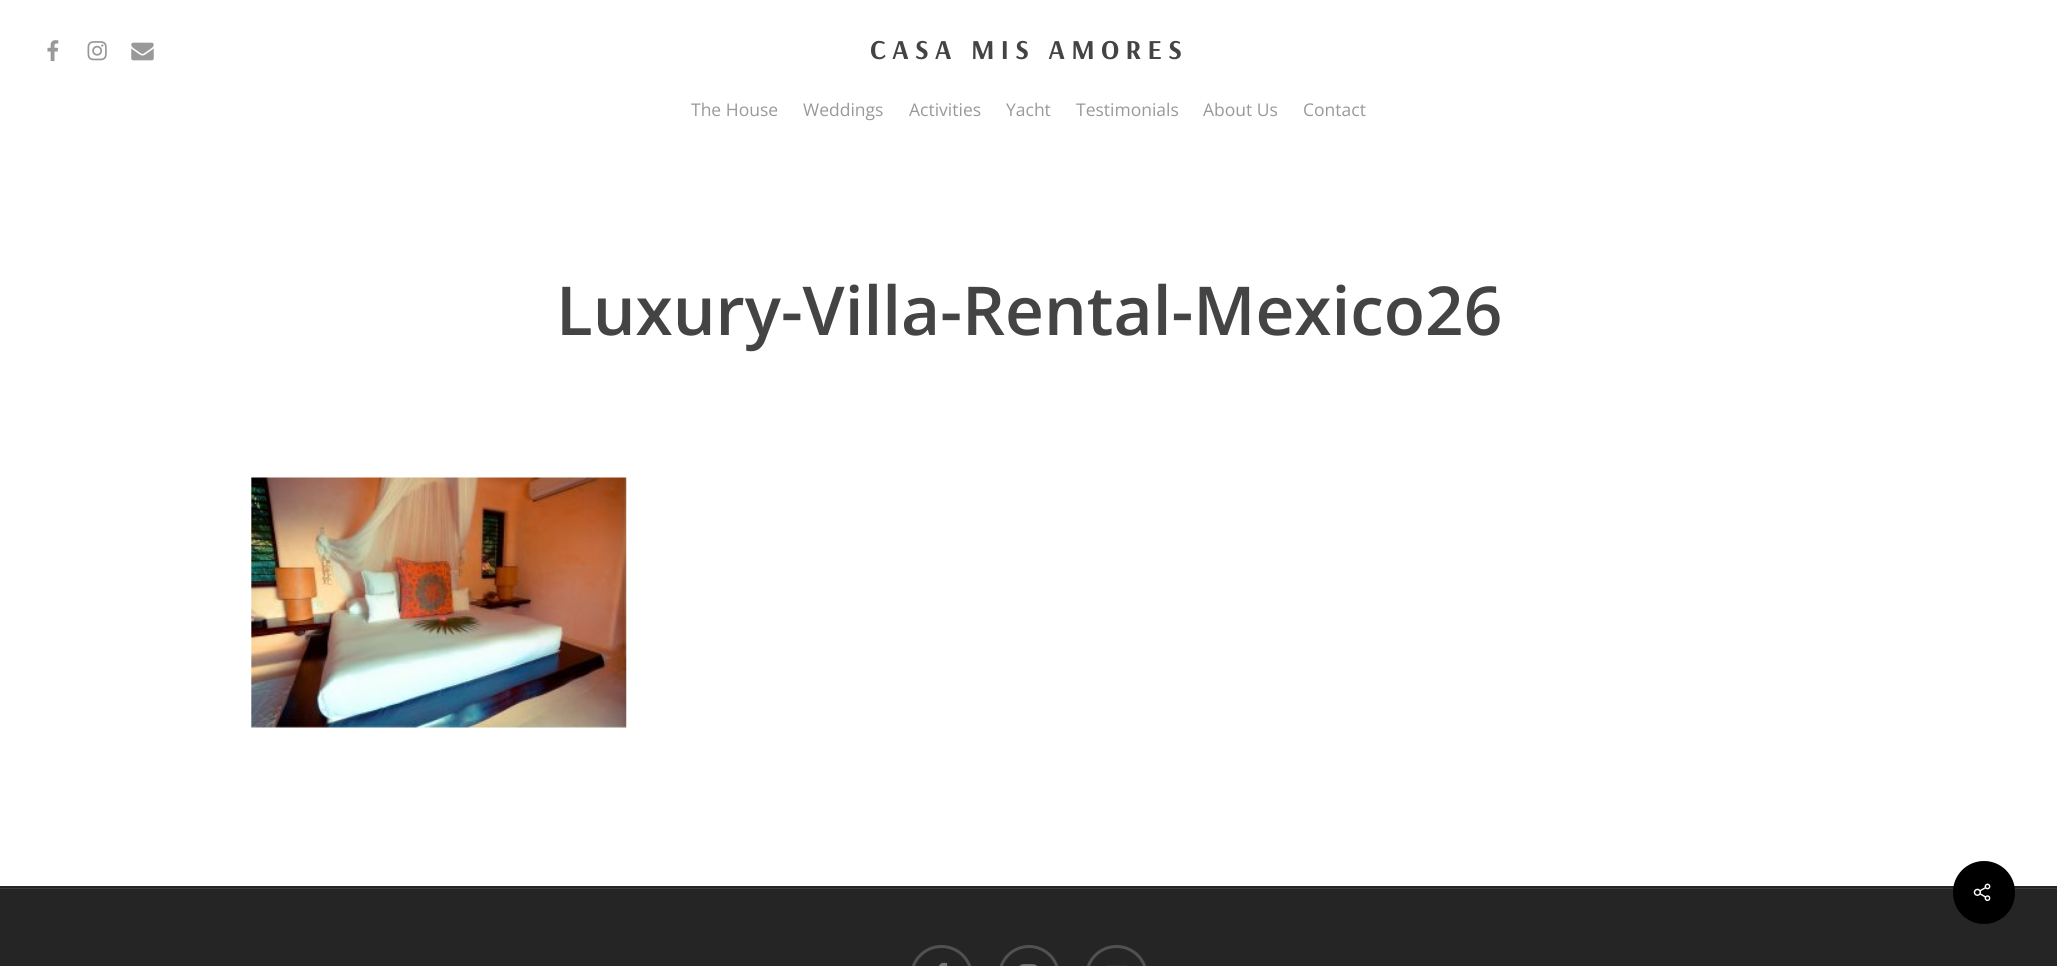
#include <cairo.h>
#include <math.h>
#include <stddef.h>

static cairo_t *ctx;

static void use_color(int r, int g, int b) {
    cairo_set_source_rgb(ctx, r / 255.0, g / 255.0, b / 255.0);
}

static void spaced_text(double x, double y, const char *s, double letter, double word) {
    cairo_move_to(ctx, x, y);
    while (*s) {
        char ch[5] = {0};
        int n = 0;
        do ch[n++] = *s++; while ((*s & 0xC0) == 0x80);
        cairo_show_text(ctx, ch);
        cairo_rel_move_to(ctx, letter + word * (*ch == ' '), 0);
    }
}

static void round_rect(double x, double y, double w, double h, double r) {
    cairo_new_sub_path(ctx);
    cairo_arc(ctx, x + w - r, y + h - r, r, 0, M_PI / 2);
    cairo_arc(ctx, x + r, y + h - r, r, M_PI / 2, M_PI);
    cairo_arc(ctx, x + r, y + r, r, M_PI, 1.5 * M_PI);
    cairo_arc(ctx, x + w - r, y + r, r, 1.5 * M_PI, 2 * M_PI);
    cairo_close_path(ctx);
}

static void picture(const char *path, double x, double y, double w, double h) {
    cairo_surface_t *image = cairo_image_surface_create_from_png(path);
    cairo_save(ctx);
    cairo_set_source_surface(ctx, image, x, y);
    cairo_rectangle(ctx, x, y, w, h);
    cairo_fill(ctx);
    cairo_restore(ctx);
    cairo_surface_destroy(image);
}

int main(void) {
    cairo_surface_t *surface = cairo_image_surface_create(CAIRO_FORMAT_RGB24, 2057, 966);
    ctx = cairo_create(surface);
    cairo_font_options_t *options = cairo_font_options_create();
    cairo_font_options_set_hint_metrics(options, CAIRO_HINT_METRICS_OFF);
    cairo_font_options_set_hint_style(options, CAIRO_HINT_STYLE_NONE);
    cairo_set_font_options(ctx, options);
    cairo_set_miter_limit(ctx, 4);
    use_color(255, 255, 255);
    cairo_paint(ctx);
    picture("img1.png", 47, 40, 12, 22);
    picture("img2.png", 87, 41, 20, 20);
    picture("img3.png", 131, 42, 23, 19);
    cairo_select_font_face(ctx, "Arsenal", CAIRO_FONT_SLANT_NORMAL, CAIRO_FONT_WEIGHT_BOLD);
    cairo_set_font_size(ctx, 27.5);
    use_color(68, 68, 68);
    spaced_text(870, 59, "CASA MIS AMORES", 6.25, 0);
    cairo_select_font_face(ctx, "Open Sans", CAIRO_FONT_SLANT_NORMAL, CAIRO_FONT_WEIGHT_NORMAL);
    cairo_set_font_size(ctx, 17.5);
    use_color(153, 153, 153);
    cairo_move_to(ctx, 691, 116);
    cairo_show_text(ctx, "The House");
    cairo_move_to(ctx, 803, 116);
    cairo_show_text(ctx, "Weddings");
    cairo_move_to(ctx, 909, 116);
    cairo_show_text(ctx, "Activities");
    cairo_move_to(ctx, 1006, 116);
    cairo_show_text(ctx, "Yacht");
    cairo_move_to(ctx, 1076, 116);
    cairo_show_text(ctx, "Testimonials");
    cairo_move_to(ctx, 1203, 116);
    cairo_show_text(ctx, "About Us");
    cairo_move_to(ctx, 1303, 116);
    cairo_show_text(ctx, "Contact");
    cairo_select_font_face(ctx, "Open Sans SemiBold", CAIRO_FONT_SLANT_NORMAL, CAIRO_FONT_WEIGHT_NORMAL);
    cairo_set_font_size(ctx, 67.5);
    use_color(68, 68, 68);
    cairo_move_to(ctx, 556, 335);
    cairo_show_text(ctx, "Luxury-Villa-Rental-Mexico26");
    picture("img4.png", 251, 477, 376, 251);
    use_color(37, 37, 37);
    cairo_rectangle(ctx, 0, 886, 2057, 80);
    cairo_fill(ctx);
    use_color(59, 59, 59);
    cairo_rectangle(ctx, 0, 888, 2057, 1);
    cairo_fill(ctx);
    use_color(0, 0, 0);
    round_rect(1953, 861, 62, 63, 31);
    cairo_fill(ctx);
    picture("img5.png", 1973, 883, 18, 19);
    picture("img6.png", 939, 962, 9, 4);
    round_rect(911.5, 946.5, 60, 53, 30);
    use_color(81, 81, 81);
    cairo_set_line_width(ctx, 3);
    cairo_stroke(ctx);
    picture("img7.png", 1019, 964, 18, 2);
    round_rect(999.5, 946.5, 59, 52, 29.5);
    cairo_stroke(ctx);
    picture("img8.png", 1106, 965, 21, 1);
    round_rect(1086.5, 946.5, 60, 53, 30);
    cairo_stroke(ctx);
    cairo_surface_write_to_png(surface, "result.png");
    cairo_font_options_destroy(options);
    cairo_destroy(ctx);
    cairo_surface_destroy(surface);
    return 0;
}
